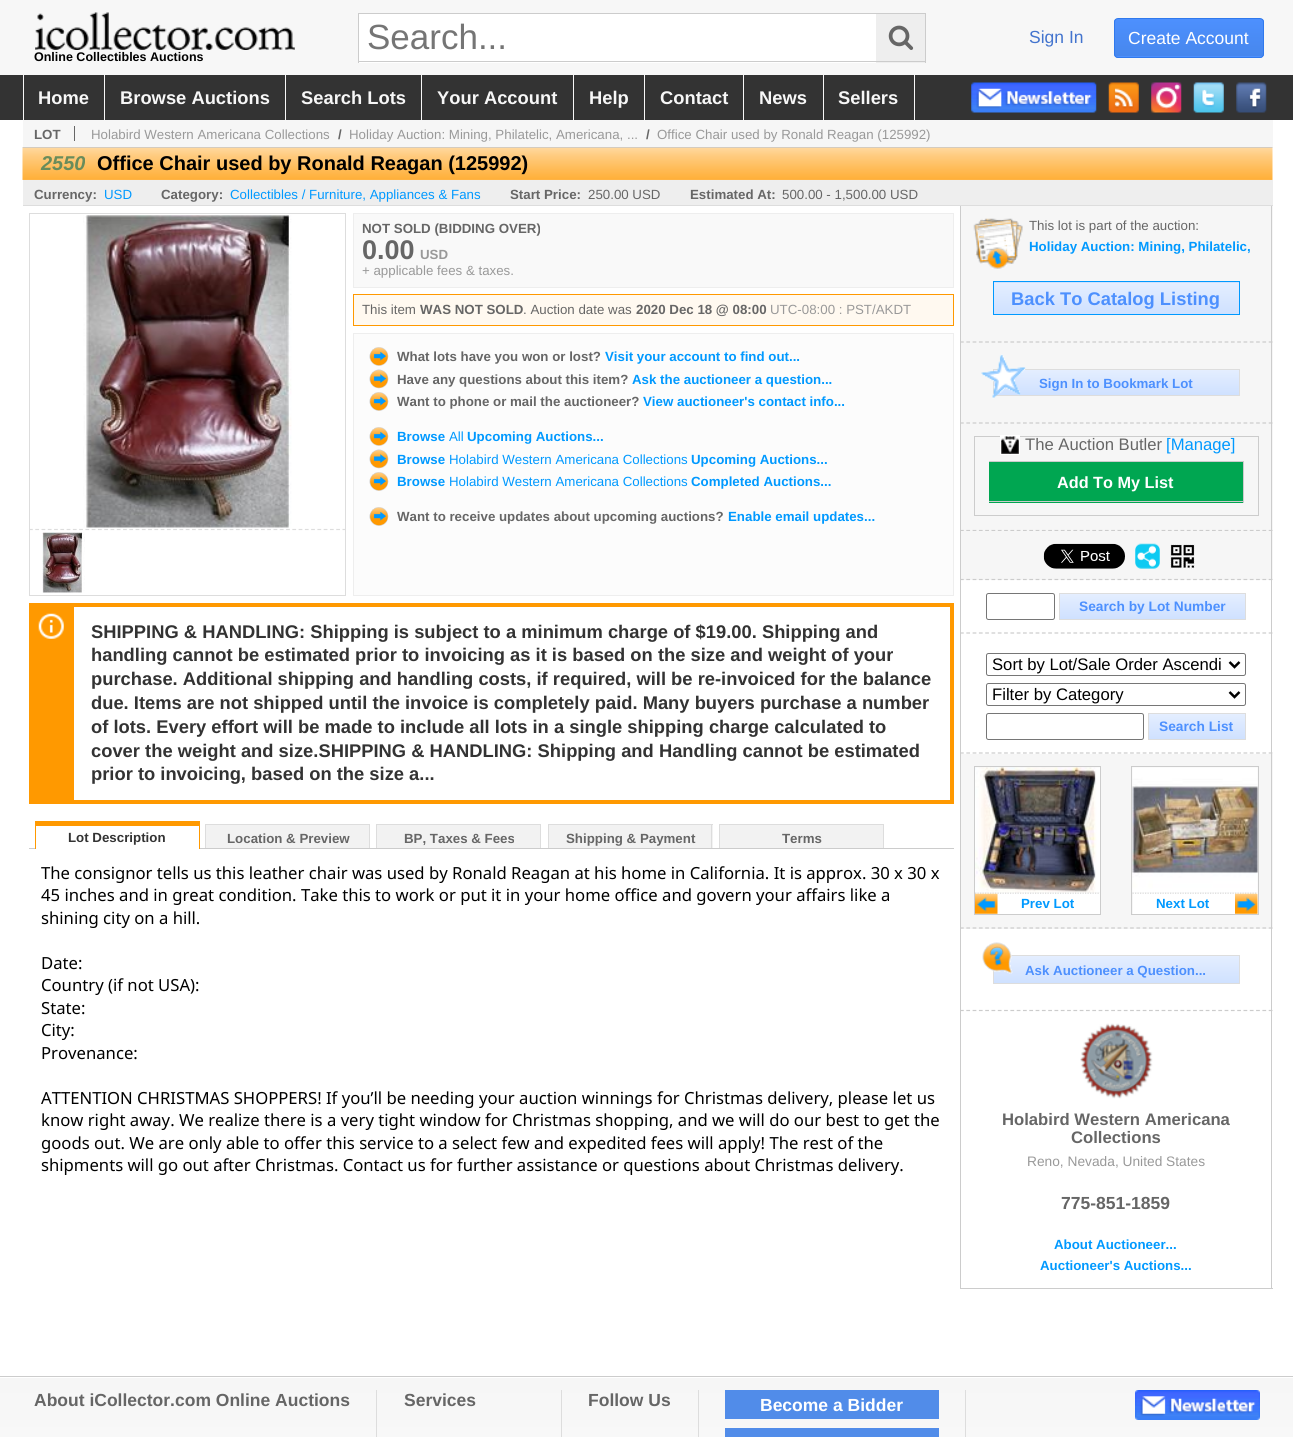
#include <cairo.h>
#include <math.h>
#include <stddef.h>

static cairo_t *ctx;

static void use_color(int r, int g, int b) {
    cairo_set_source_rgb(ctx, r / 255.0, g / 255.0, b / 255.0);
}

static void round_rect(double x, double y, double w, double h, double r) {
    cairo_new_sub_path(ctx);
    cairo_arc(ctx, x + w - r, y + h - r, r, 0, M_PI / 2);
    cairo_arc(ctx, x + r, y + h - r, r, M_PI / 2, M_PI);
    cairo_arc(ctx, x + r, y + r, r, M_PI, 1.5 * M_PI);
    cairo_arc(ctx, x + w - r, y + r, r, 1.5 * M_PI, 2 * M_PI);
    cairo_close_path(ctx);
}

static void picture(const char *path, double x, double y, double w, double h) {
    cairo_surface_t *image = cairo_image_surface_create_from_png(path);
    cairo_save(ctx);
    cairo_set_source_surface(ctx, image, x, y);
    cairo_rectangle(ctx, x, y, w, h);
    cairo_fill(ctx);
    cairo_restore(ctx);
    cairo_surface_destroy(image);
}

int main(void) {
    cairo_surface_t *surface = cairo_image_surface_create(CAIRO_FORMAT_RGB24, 1293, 1437);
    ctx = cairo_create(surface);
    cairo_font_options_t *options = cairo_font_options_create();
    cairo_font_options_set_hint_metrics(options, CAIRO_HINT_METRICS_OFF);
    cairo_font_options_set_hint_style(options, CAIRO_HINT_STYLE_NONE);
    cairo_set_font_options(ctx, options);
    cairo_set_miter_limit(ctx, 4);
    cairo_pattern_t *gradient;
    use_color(255, 255, 255);
    cairo_paint(ctx);
    use_color(247, 247, 247);
    cairo_rectangle(ctx, 0, 0, 1293, 75);
    cairo_fill(ctx);
    use_color(255, 255, 255);
    cairo_rectangle(ctx, 359, 14, 517, 49);
    cairo_fill(ctx);
    use_color(204, 204, 204);
    cairo_rectangle(ctx, 358, 13, 568, 1);
    cairo_fill(ctx);
    cairo_rectangle(ctx, 358, 61, 518, 1);
    cairo_fill(ctx);
    cairo_rectangle(ctx, 358, 13, 1, 50);
    cairo_fill(ctx);
    cairo_select_font_face(ctx, "Liberation Sans", CAIRO_FONT_SLANT_NORMAL, CAIRO_FONT_WEIGHT_NORMAL);
    cairo_set_font_size(ctx, 35);
    use_color(117, 117, 117);
    cairo_move_to(ctx, 367, 49);
    cairo_show_text(ctx, "Search...");
    use_color(238, 238, 238);
    cairo_rectangle(ctx, 876, 14, 49, 49);
    cairo_fill(ctx);
    use_color(204, 204, 204);
    cairo_rectangle(ctx, 925, 13, 1, 50);
    cairo_fill(ctx);
    cairo_rectangle(ctx, 876, 61, 50, 1);
    cairo_fill(ctx);
    picture("img1.png", 888, 25, 26, 25);
    cairo_set_font_size(ctx, 17.5);
    use_color(67, 116, 206);
    cairo_move_to(ctx, 1029, 43);
    cairo_show_text(ctx, "Sign In");
    cairo_save(ctx);
    round_rect(1114, 18, 150, 40, 4);
    cairo_clip(ctx);
    gradient = cairo_pattern_create_linear(1189, 19, 1189, 56);
    cairo_pattern_add_color_stop_rgba(gradient, 0, 0.302, 0.565, 0.996, 1);
    cairo_pattern_add_color_stop_rgba(gradient, 1, 0.278, 0.529, 0.929, 1);
    cairo_set_source(ctx, gradient);
    cairo_pattern_destroy(gradient);
    cairo_rectangle(ctx, 1114, 19, 150, 37);
    cairo_fill(ctx);
    gradient = cairo_pattern_create_linear(1189, 56, 1189, 94);
    cairo_pattern_add_color_stop_rgba(gradient, 0, 0.302, 0.565, 0.996, 1);
    cairo_pattern_add_color_stop_rgba(gradient, 1, 0.278, 0.529, 0.929, 1);
    cairo_set_source(ctx, gradient);
    cairo_pattern_destroy(gradient);
    cairo_rectangle(ctx, 1114, 56, 150, 2);
    cairo_fill(ctx);
    cairo_restore(ctx);
    round_rect(1114.5, 18.5, 149, 39, 3.5);
    use_color(48, 121, 237);
    cairo_set_line_width(ctx, 1);
    cairo_stroke(ctx);
    use_color(255, 255, 255);
    cairo_move_to(ctx, 1128, 44);
    cairo_show_text(ctx, "Create Account");
    picture("img2.png", 35, 12, 260, 38);
    cairo_select_font_face(ctx, "Liberation Sans", CAIRO_FONT_SLANT_NORMAL, CAIRO_FONT_WEIGHT_BOLD);
    cairo_set_font_size(ctx, 12.5);
    use_color(0, 0, 0);
    cairo_move_to(ctx, 34, 61);
    cairo_show_text(ctx, "Online Collectibles Auctions");
    use_color(51, 51, 51);
    cairo_rectangle(ctx, 0, 75, 1293, 45);
    cairo_fill(ctx);
    use_color(247, 247, 247);
    cairo_rectangle(ctx, 23, 75, 1, 45);
    cairo_fill(ctx);
    cairo_set_font_size(ctx, 18.35);
    cairo_move_to(ctx, 38, 104);
    cairo_show_text(ctx, "Home");
    cairo_rectangle(ctx, 104, 75, 1, 45);
    cairo_fill(ctx);
    cairo_move_to(ctx, 120, 104);
    cairo_show_text(ctx, "Browse Auctions");
    cairo_rectangle(ctx, 285, 75, 1, 45);
    cairo_fill(ctx);
    cairo_move_to(ctx, 301, 104);
    cairo_show_text(ctx, "Search Lots");
    cairo_rectangle(ctx, 421, 75, 1, 45);
    cairo_fill(ctx);
    cairo_move_to(ctx, 437, 104);
    cairo_show_text(ctx, "Your Account");
    cairo_rectangle(ctx, 573, 75, 1, 45);
    cairo_fill(ctx);
    cairo_move_to(ctx, 589, 104);
    cairo_show_text(ctx, "Help");
    cairo_rectangle(ctx, 644, 75, 1, 45);
    cairo_fill(ctx);
    cairo_move_to(ctx, 660, 104);
    cairo_show_text(ctx, "Contact");
    cairo_rectangle(ctx, 743, 75, 1, 45);
    cairo_fill(ctx);
    cairo_move_to(ctx, 759, 104);
    cairo_show_text(ctx, "News");
    cairo_rectangle(ctx, 914, 75, 1, 45);
    cairo_fill(ctx);
    cairo_rectangle(ctx, 823, 75, 1, 45);
    cairo_fill(ctx);
    cairo_move_to(ctx, 838, 104);
    cairo_show_text(ctx, "Sellers");
    picture("img3.png", 971, 82, 126, 31);
    picture("img4.png", 1108, 82, 31, 31);
    picture("img5.png", 1151, 82, 31, 31);
    picture("img6.png", 1193, 82, 31, 31);
    picture("img7.png", 1236, 82, 31, 31);
    use_color(246, 246, 246);
    cairo_rectangle(ctx, 23, 120, 1250, 28);
    cairo_fill(ctx);
    cairo_set_font_size(ctx, 13.3);
    use_color(102, 102, 102);
    cairo_move_to(ctx, 34, 139);
    cairo_show_text(ctx, "LOT");
    cairo_rectangle(ctx, 74, 126, 1, 15);
    cairo_fill(ctx);
    cairo_select_font_face(ctx, "Liberation Sans", CAIRO_FONT_SLANT_NORMAL, CAIRO_FONT_WEIGHT_NORMAL);
    use_color(153, 153, 153);
    cairo_move_to(ctx, 91, 139);
    cairo_show_text(ctx, "Holabird Western Americana Collections");
    cairo_select_font_face(ctx, "Liberation Sans", CAIRO_FONT_SLANT_NORMAL, CAIRO_FONT_WEIGHT_BOLD);
    use_color(102, 102, 102);
    cairo_move_to(ctx, 338, 139);
    cairo_show_text(ctx, "/");
    cairo_select_font_face(ctx, "Liberation Sans", CAIRO_FONT_SLANT_NORMAL, CAIRO_FONT_WEIGHT_NORMAL);
    use_color(153, 153, 153);
    cairo_move_to(ctx, 349, 139);
    cairo_show_text(ctx, "Holiday Auction: Mining, Philatelic, Americana, ...");
    cairo_select_font_face(ctx, "Liberation Sans", CAIRO_FONT_SLANT_NORMAL, CAIRO_FONT_WEIGHT_BOLD);
    use_color(102, 102, 102);
    cairo_move_to(ctx, 646, 139);
    cairo_show_text(ctx, "/");
    cairo_select_font_face(ctx, "Liberation Sans", CAIRO_FONT_SLANT_NORMAL, CAIRO_FONT_WEIGHT_NORMAL);
    use_color(153, 153, 153);
    cairo_move_to(ctx, 657, 139);
    cairo_show_text(ctx, "Office Chair used by Ronald Reagan (125992)");
    picture("img8.png", 22, 147, 1251, 33);
    cairo_select_font_face(ctx, "Liberation Sans", CAIRO_FONT_SLANT_ITALIC, CAIRO_FONT_WEIGHT_BOLD);
    cairo_set_font_size(ctx, 20);
    use_color(105, 140, 91);
    cairo_move_to(ctx, 41, 170);
    cairo_show_text(ctx, "2550");
    cairo_select_font_face(ctx, "Liberation Sans", CAIRO_FONT_SLANT_NORMAL, CAIRO_FONT_WEIGHT_BOLD);
    use_color(0, 0, 0);
    cairo_move_to(ctx, 97, 170);
    cairo_show_text(ctx, "Office Chair used by Ronald Reagan (125992)");
    use_color(238, 238, 238);
    cairo_rectangle(ctx, 23, 180, 1250, 25);
    cairo_fill(ctx);
    use_color(221, 221, 221);
    cairo_rectangle(ctx, 23, 205, 1250, 1);
    cairo_fill(ctx);
    cairo_set_font_size(ctx, 13.3);
    use_color(102, 102, 102);
    cairo_move_to(ctx, 34, 199);
    cairo_show_text(ctx, "Currency:");
    cairo_select_font_face(ctx, "Liberation Sans", CAIRO_FONT_SLANT_NORMAL, CAIRO_FONT_WEIGHT_NORMAL);
    use_color(0, 153, 255);
    cairo_move_to(ctx, 104, 199);
    cairo_show_text(ctx, "USD");
    cairo_select_font_face(ctx, "Liberation Sans", CAIRO_FONT_SLANT_NORMAL, CAIRO_FONT_WEIGHT_BOLD);
    use_color(102, 102, 102);
    cairo_move_to(ctx, 161, 199);
    cairo_show_text(ctx, "Category:");
    cairo_select_font_face(ctx, "Liberation Sans", CAIRO_FONT_SLANT_NORMAL, CAIRO_FONT_WEIGHT_NORMAL);
    use_color(0, 153, 255);
    cairo_move_to(ctx, 230, 199);
    cairo_show_text(ctx, "Collectibles / Furniture, Appliances & Fans");
    cairo_select_font_face(ctx, "Liberation Sans", CAIRO_FONT_SLANT_NORMAL, CAIRO_FONT_WEIGHT_BOLD);
    use_color(102, 102, 102);
    cairo_move_to(ctx, 510, 199);
    cairo_show_text(ctx, "Start Price:");
    cairo_select_font_face(ctx, "Liberation Sans", CAIRO_FONT_SLANT_NORMAL, CAIRO_FONT_WEIGHT_NORMAL);
    cairo_move_to(ctx, 588, 199);
    cairo_show_text(ctx, "250.00 USD");
    cairo_select_font_face(ctx, "Liberation Sans", CAIRO_FONT_SLANT_NORMAL, CAIRO_FONT_WEIGHT_BOLD);
    cairo_move_to(ctx, 690, 199);
    cairo_show_text(ctx, "Estimated At:");
    cairo_select_font_face(ctx, "Liberation Sans", CAIRO_FONT_SLANT_NORMAL, CAIRO_FONT_WEIGHT_NORMAL);
    cairo_move_to(ctx, 782, 199);
    cairo_show_text(ctx, "500.00 - 1,500.00 USD");
    use_color(221, 221, 221);
    cairo_rectangle(ctx, 29, 213, 317, 1);
    cairo_fill(ctx);
    cairo_rectangle(ctx, 345, 213, 1, 316);
    cairo_fill(ctx);
    cairo_rectangle(ctx, 29, 213, 1, 316);
    cairo_fill(ctx);
    picture("img9.png", 83, 215, 209, 313);
    cairo_new_path(ctx);
    cairo_move_to(ctx, 29, 529.5);
    cairo_line_to(ctx, 346, 529.5);
    cairo_set_line_width(ctx, 1.2);
    cairo_set_dash(ctx, (double[]){3.75, 2.52}, 2, 0);
    cairo_stroke(ctx);
    cairo_rectangle(ctx, 345, 529, 1, 67);
    cairo_fill(ctx);
    cairo_rectangle(ctx, 29, 595, 317, 1);
    cairo_fill(ctx);
    cairo_rectangle(ctx, 29, 529, 1, 67);
    cairo_fill(ctx);
    picture("img10.png", 42, 532, 43, 61);
    use_color(249, 249, 249);
    cairo_rectangle(ctx, 353.5, 213.5, 600, 74);
    cairo_fill_preserve(ctx);
    use_color(238, 238, 238);
    cairo_set_line_width(ctx, 1);
    cairo_set_dash(ctx, NULL, 0, 0);
    cairo_stroke(ctx);
    cairo_select_font_face(ctx, "Liberation Sans", CAIRO_FONT_SLANT_NORMAL, CAIRO_FONT_WEIGHT_BOLD);
    use_color(102, 102, 102);
    cairo_move_to(ctx, 362, 233);
    cairo_show_text(ctx, "NOT SOLD (BIDDING OVER)");
    cairo_set_font_size(ctx, 27);
    cairo_move_to(ctx, 362, 259);
    cairo_show_text(ctx, "0.00");
    cairo_set_font_size(ctx, 13.3);
    use_color(153, 153, 153);
    cairo_move_to(ctx, 420, 259);
    cairo_show_text(ctx, "USD");
    cairo_select_font_face(ctx, "Liberation Sans", CAIRO_FONT_SLANT_NORMAL, CAIRO_FONT_WEIGHT_NORMAL);
    cairo_move_to(ctx, 362, 275);
    cairo_show_text(ctx, "+ applicable fees & taxes.");
    use_color(255, 249, 240);
    cairo_rectangle(ctx, 353.5, 294.5, 600, 31);
    cairo_fill_preserve(ctx);
    use_color(255, 153, 0);
    cairo_stroke(ctx);
    use_color(102, 102, 102);
    cairo_move_to(ctx, 362, 314);
    cairo_show_text(ctx, "This item");
    cairo_select_font_face(ctx, "Liberation Sans", CAIRO_FONT_SLANT_NORMAL, CAIRO_FONT_WEIGHT_BOLD);
    cairo_move_to(ctx, 420, 314);
    cairo_show_text(ctx, "WAS NOT SOLD");
    cairo_select_font_face(ctx, "Liberation Sans", CAIRO_FONT_SLANT_NORMAL, CAIRO_FONT_WEIGHT_NORMAL);
    cairo_move_to(ctx, 523, 314);
    cairo_show_text(ctx, ". Auction date was");
    cairo_select_font_face(ctx, "Liberation Sans", CAIRO_FONT_SLANT_NORMAL, CAIRO_FONT_WEIGHT_BOLD);
    cairo_move_to(ctx, 636, 314);
    cairo_show_text(ctx, "2020 Dec 18 @ 08:00");
    cairo_select_font_face(ctx, "Liberation Sans", CAIRO_FONT_SLANT_NORMAL, CAIRO_FONT_WEIGHT_NORMAL);
    use_color(153, 153, 153);
    cairo_move_to(ctx, 770, 314);
    cairo_show_text(ctx, "UTC-08:00 : PST/AKDT");
    use_color(252, 252, 252);
    cairo_rectangle(ctx, 353.5, 333.5, 600, 262);
    cairo_fill_preserve(ctx);
    use_color(238, 238, 238);
    cairo_stroke(ctx);
    picture("img11.png", 369, 347, 20, 19);
    cairo_select_font_face(ctx, "Liberation Sans", CAIRO_FONT_SLANT_NORMAL, CAIRO_FONT_WEIGHT_BOLD);
    use_color(102, 102, 102);
    cairo_move_to(ctx, 397, 361);
    cairo_show_text(ctx, "What lots have you won or lost?");
    use_color(0, 153, 255);
    cairo_move_to(ctx, 605, 361);
    cairo_show_text(ctx, "Visit your account to find out...");
    picture("img12.png", 369, 369, 20, 20);
    use_color(102, 102, 102);
    cairo_move_to(ctx, 397, 384);
    cairo_show_text(ctx, "Have any questions about this item?");
    use_color(0, 153, 255);
    cairo_move_to(ctx, 632, 384);
    cairo_show_text(ctx, "Ask the auctioneer a question...");
    picture("img11.png", 369, 392, 20, 19);
    use_color(102, 102, 102);
    cairo_move_to(ctx, 397, 406);
    cairo_show_text(ctx, "Want to phone or mail the auctioneer?");
    use_color(0, 153, 255);
    cairo_move_to(ctx, 643, 406);
    cairo_show_text(ctx, "View auctioneer's contact info...");
    picture("img11.png", 369, 427, 20, 19);
    cairo_move_to(ctx, 397, 441);
    cairo_show_text(ctx, "Browse");
    cairo_select_font_face(ctx, "Liberation Sans", CAIRO_FONT_SLANT_NORMAL, CAIRO_FONT_WEIGHT_NORMAL);
    cairo_move_to(ctx, 449, 441);
    cairo_show_text(ctx, "All");
    cairo_select_font_face(ctx, "Liberation Sans", CAIRO_FONT_SLANT_NORMAL, CAIRO_FONT_WEIGHT_BOLD);
    cairo_move_to(ctx, 467, 441);
    cairo_show_text(ctx, "Upcoming Auctions...");
    picture("img12.png", 369, 449, 20, 20);
    cairo_move_to(ctx, 397, 464);
    cairo_show_text(ctx, "Browse");
    cairo_select_font_face(ctx, "Liberation Sans", CAIRO_FONT_SLANT_NORMAL, CAIRO_FONT_WEIGHT_NORMAL);
    cairo_move_to(ctx, 449, 464);
    cairo_show_text(ctx, "Holabird Western Americana Collections");
    cairo_select_font_face(ctx, "Liberation Sans", CAIRO_FONT_SLANT_NORMAL, CAIRO_FONT_WEIGHT_BOLD);
    cairo_move_to(ctx, 691, 464);
    cairo_show_text(ctx, "Upcoming Auctions...");
    picture("img11.png", 369, 472, 20, 19);
    cairo_move_to(ctx, 397, 486);
    cairo_show_text(ctx, "Browse");
    cairo_select_font_face(ctx, "Liberation Sans", CAIRO_FONT_SLANT_NORMAL, CAIRO_FONT_WEIGHT_NORMAL);
    cairo_move_to(ctx, 449, 486);
    cairo_show_text(ctx, "Holabird Western Americana Collections");
    cairo_select_font_face(ctx, "Liberation Sans", CAIRO_FONT_SLANT_NORMAL, CAIRO_FONT_WEIGHT_BOLD);
    cairo_move_to(ctx, 691, 486);
    cairo_show_text(ctx, "Completed Auctions...");
    picture("img11.png", 369, 507, 20, 19);
    use_color(102, 102, 102);
    cairo_move_to(ctx, 397, 521);
    cairo_show_text(ctx, "Want to receive updates about upcoming auctions?");
    use_color(0, 153, 255);
    cairo_move_to(ctx, 728, 521);
    cairo_show_text(ctx, "Enable email updates...");
    use_color(255, 153, 0);
    cairo_rectangle(ctx, 74, 603, 880, 4);
    cairo_fill(ctx);
    cairo_rectangle(ctx, 950, 603, 4, 201);
    cairo_fill(ctx);
    cairo_rectangle(ctx, 74, 800, 880, 4);
    cairo_fill(ctx);
    cairo_rectangle(ctx, 29, 603, 45, 201);
    cairo_fill(ctx);
    picture("img13.png", 38, 613, 26, 26);
    cairo_set_font_size(ctx, 18.35);
    use_color(51, 51, 51);
    cairo_move_to(ctx, 91, 638);
    cairo_show_text(ctx, "SHIPPING & HANDLING: Shipping is subject to a minimum charge of $19.00. Shipping and");
    cairo_move_to(ctx, 91, 661);
    cairo_show_text(ctx, "handling cannot be estimated prior to invoicing as it is based on the size and weight of your");
    cairo_move_to(ctx, 91, 685);
    cairo_show_text(ctx, "purchase. Additional shipping and handling costs, if required, will be re-invoiced for the balance");
    cairo_move_to(ctx, 91, 709);
    cairo_show_text(ctx, "due. Items are not shipped until the invoice is completely paid. Many buyers purchase a number");
    cairo_move_to(ctx, 91, 733);
    cairo_show_text(ctx, "of lots. Every effort will be made to include all lots in a single shipping charge calculated to");
    cairo_move_to(ctx, 91, 757);
    cairo_show_text(ctx, "cover the weight and size.SHIPPING & HANDLING: Shipping and Handling cannot be estimated");
    cairo_move_to(ctx, 91, 780);
    cairo_show_text(ctx, "prior to invoicing, based on the size a...");
    use_color(204, 204, 204);
    cairo_rectangle(ctx, 29, 848, 925, 1);
    cairo_fill(ctx);
    use_color(255, 255, 255);
    cairo_rectangle(ctx, 36, 848, 163, 1);
    cairo_fill(ctx);
    use_color(255, 153, 0);
    cairo_rectangle(ctx, 35, 821, 165, 5);
    cairo_fill(ctx);
    cairo_rectangle(ctx, 199, 821, 1, 28);
    cairo_fill(ctx);
    cairo_rectangle(ctx, 35, 821, 1, 28);
    cairo_fill(ctx);
    cairo_set_font_size(ctx, 13.3);
    use_color(51, 51, 51);
    cairo_move_to(ctx, 68, 842);
    cairo_show_text(ctx, "Lot Description");
    use_color(242, 242, 242);
    cairo_rectangle(ctx, 206, 825, 163, 23);
    cairo_fill(ctx);
    use_color(221, 221, 221);
    cairo_rectangle(ctx, 205, 824, 165, 1);
    cairo_fill(ctx);
    cairo_rectangle(ctx, 369, 824, 1, 24);
    cairo_fill(ctx);
    cairo_rectangle(ctx, 205, 824, 1, 24);
    cairo_fill(ctx);
    use_color(102, 102, 102);
    cairo_move_to(ctx, 227, 843);
    cairo_show_text(ctx, "Location & Preview");
    use_color(242, 242, 242);
    cairo_rectangle(ctx, 377, 825, 163, 23);
    cairo_fill(ctx);
    use_color(221, 221, 221);
    cairo_rectangle(ctx, 376, 824, 165, 1);
    cairo_fill(ctx);
    cairo_rectangle(ctx, 540, 824, 1, 24);
    cairo_fill(ctx);
    cairo_rectangle(ctx, 376, 824, 1, 24);
    cairo_fill(ctx);
    use_color(102, 102, 102);
    cairo_move_to(ctx, 404, 843);
    cairo_show_text(ctx, "BP, Taxes & Fees");
    use_color(242, 242, 242);
    cairo_rectangle(ctx, 549, 825, 164, 23);
    cairo_fill(ctx);
    use_color(221, 221, 221);
    cairo_rectangle(ctx, 548, 824, 165, 1);
    cairo_fill(ctx);
    cairo_rectangle(ctx, 711, 824, 1, 24);
    cairo_fill(ctx);
    cairo_rectangle(ctx, 548, 824, 1, 24);
    cairo_fill(ctx);
    use_color(102, 102, 102);
    cairo_move_to(ctx, 566, 843);
    cairo_show_text(ctx, "Shipping & Payment");
    use_color(242, 242, 242);
    cairo_rectangle(ctx, 720, 825, 163, 23);
    cairo_fill(ctx);
    use_color(221, 221, 221);
    cairo_rectangle(ctx, 719, 824, 165, 1);
    cairo_fill(ctx);
    cairo_rectangle(ctx, 883, 824, 1, 24);
    cairo_fill(ctx);
    cairo_rectangle(ctx, 719, 824, 1, 24);
    cairo_fill(ctx);
    use_color(102, 102, 102);
    cairo_move_to(ctx, 782, 843);
    cairo_show_text(ctx, "Terms");
    cairo_select_font_face(ctx, "Noto Sans", CAIRO_FONT_SLANT_NORMAL, CAIRO_FONT_WEIGHT_NORMAL);
    cairo_set_font_size(ctx, 16.67);
    use_color(0, 0, 0);
    cairo_move_to(ctx, 41, 879);
    cairo_show_text(ctx, "The consignor tells us this leather chair was used by Ronald Reagan at his home in California. It is approx. 30 x 30 x");
    cairo_move_to(ctx, 41, 901);
    cairo_show_text(ctx, "45 inches and in great condition. Take this to work or put it in your home office and govern your affairs like a");
    cairo_move_to(ctx, 41, 924);
    cairo_show_text(ctx, "shining city on a hill.");
    cairo_move_to(ctx, 41, 969);
    cairo_show_text(ctx, "Date:");
    cairo_move_to(ctx, 41, 991);
    cairo_show_text(ctx, "Country (if not USA):");
    cairo_move_to(ctx, 41, 1014);
    cairo_show_text(ctx, "State:");
    cairo_move_to(ctx, 41, 1036);
    cairo_show_text(ctx, "City:");
    cairo_move_to(ctx, 41, 1059);
    cairo_show_text(ctx, "Provenance:");
    cairo_move_to(ctx, 41, 1104);
    cairo_show_text(ctx, "ATTENTION CHRISTMAS SHOPPERS! If you’ll be needing your auction winnings for Christmas delivery, please let us");
    cairo_move_to(ctx, 41, 1126);
    cairo_show_text(ctx, "know right away. We realize there is a very tight window for Christmas shopping, and we will do our best to get the");
    cairo_move_to(ctx, 41, 1149);
    cairo_show_text(ctx, "goods out. We are only able to offer this service to a select few and expedited fees will apply! The rest of the");
    cairo_move_to(ctx, 41, 1171);
    cairo_show_text(ctx, "shipments will go out after Christmas. Contact us for further assistance or questions about Christmas delivery.");
    use_color(246, 246, 246);
    cairo_rectangle(ctx, 961, 206, 312, 325);
    cairo_fill(ctx);
    use_color(204, 204, 204);
    cairo_rectangle(ctx, 1271, 206, 1, 325);
    cairo_fill(ctx);
    cairo_new_path(ctx);
    cairo_move_to(ctx, 960, 342);
    cairo_line_to(ctx, 1272.5, 342);
    cairo_set_line_width(ctx, 1.2);
    cairo_set_dash(ctx, (double[]){3.75, 2.55}, 2, 0);
    cairo_stroke(ctx);
    cairo_rectangle(ctx, 960, 206, 1, 137);
    cairo_fill(ctx);
    picture("img14.png", 973, 218, 50, 51);
    cairo_select_font_face(ctx, "Liberation Sans", CAIRO_FONT_SLANT_NORMAL, CAIRO_FONT_WEIGHT_NORMAL);
    cairo_set_font_size(ctx, 13.3);
    use_color(102, 102, 102);
    cairo_move_to(ctx, 1029, 230);
    cairo_show_text(ctx, "This lot is part of the auction:");
    cairo_select_font_face(ctx, "Liberation Sans", CAIRO_FONT_SLANT_NORMAL, CAIRO_FONT_WEIGHT_BOLD);
    use_color(0, 153, 255);
    cairo_move_to(ctx, 1029, 251);
    cairo_show_text(ctx, "Holiday Auction: Mining, Philatelic,");
    gradient = cairo_pattern_create_linear(1116, 251, 1116, 283);
    cairo_pattern_add_color_stop_rgba(gradient, 0, 0.894, 0.933, 1, 1);
    cairo_pattern_add_color_stop_rgba(gradient, 1, 0.812, 0.882, 1, 1);
    cairo_set_source(ctx, gradient);
    cairo_pattern_destroy(gradient);
    cairo_rectangle(ctx, 993, 282, 247, 1);
    cairo_fill(ctx);
    gradient = cairo_pattern_create_linear(1116, 283, 1116, 314);
    cairo_pattern_add_color_stop_rgba(gradient, 0, 0.894, 0.933, 1, 1);
    cairo_pattern_add_color_stop_rgba(gradient, 1, 0.812, 0.882, 1, 1);
    cairo_set_source(ctx, gradient);
    cairo_pattern_destroy(gradient);
    cairo_rectangle(ctx, 994, 283, 245, 31);
    cairo_fill(ctx);
    cairo_rectangle(ctx, 993.5, 281.5, 246, 33);
    use_color(0, 153, 255);
    cairo_set_line_width(ctx, 1);
    cairo_set_dash(ctx, NULL, 0, 0);
    cairo_stroke(ctx);
    cairo_set_font_size(ctx, 18.35);
    use_color(77, 144, 254);
    cairo_move_to(ctx, 1011, 305);
    cairo_show_text(ctx, "Back To Catalog Listing");
    cairo_new_path(ctx);
    cairo_move_to(ctx, 960, 423);
    cairo_line_to(ctx, 1272.5, 423);
    use_color(204, 204, 204);
    cairo_set_line_width(ctx, 1.2);
    cairo_set_dash(ctx, (double[]){3.75, 2.55}, 2, 0);
    cairo_stroke(ctx);
    cairo_rectangle(ctx, 960, 343, 1, 81);
    cairo_fill(ctx);
    gradient = cairo_pattern_create_linear(1116, 370, 1116, 395);
    cairo_pattern_add_color_stop_rgba(gradient, 0, 0.894, 0.933, 1, 1);
    cairo_pattern_add_color_stop_rgba(gradient, 1, 0.812, 0.882, 1, 1);
    cairo_set_source(ctx, gradient);
    cairo_pattern_destroy(gradient);
    cairo_rectangle(ctx, 994, 370, 245, 25);
    cairo_fill(ctx);
    cairo_rectangle(ctx, 993.5, 369.5, 246, 26);
    use_color(221, 221, 221);
    cairo_set_line_width(ctx, 1);
    cairo_set_dash(ctx, NULL, 0, 0);
    cairo_stroke(ctx);
    picture("img15.png", 981, 354, 45, 45);
    cairo_set_font_size(ctx, 13.3);
    use_color(77, 144, 254);
    cairo_move_to(ctx, 1039, 388);
    cairo_show_text(ctx, "Sign In to Bookmark Lot");
    cairo_new_path(ctx);
    cairo_move_to(ctx, 960, 530.5);
    cairo_line_to(ctx, 1272.5, 530.5);
    use_color(204, 204, 204);
    cairo_set_line_width(ctx, 1.2);
    cairo_set_dash(ctx, (double[]){3.75, 2.55}, 2, 0);
    cairo_stroke(ctx);
    cairo_rectangle(ctx, 960, 424, 1, 107);
    cairo_fill(ctx);
    cairo_rectangle(ctx, 974.5, 436.5, 284, 79);
    cairo_set_line_width(ctx, 1);
    cairo_set_dash(ctx, NULL, 0, 0);
    cairo_stroke(ctx);
    picture("img16.png", 1000, 435, 20, 20);
    cairo_select_font_face(ctx, "Liberation Sans", CAIRO_FONT_SLANT_NORMAL, CAIRO_FONT_WEIGHT_NORMAL);
    cairo_set_font_size(ctx, 16.67);
    use_color(102, 102, 102);
    cairo_move_to(ctx, 1025, 450);
    cairo_show_text(ctx, "The Auction Butler");
    use_color(0, 153, 255);
    cairo_move_to(ctx, 1166, 450);
    cairo_show_text(ctx, "[Manage]");
    use_color(0, 166, 81);
    cairo_rectangle(ctx, 989, 462, 254, 41);
    cairo_fill(ctx);
    use_color(204, 204, 204);
    cairo_rectangle(ctx, 989, 461, 255, 1);
    cairo_fill(ctx);
    cairo_rectangle(ctx, 1243, 461, 1, 42);
    cairo_fill(ctx);
    cairo_rectangle(ctx, 989, 501, 255, 1);
    cairo_fill(ctx);
    cairo_select_font_face(ctx, "Liberation Sans", CAIRO_FONT_SLANT_NORMAL, CAIRO_FONT_WEIGHT_BOLD);
    cairo_set_font_size(ctx, 16.25);
    use_color(255, 255, 255);
    cairo_move_to(ctx, 1057, 488);
    cairo_show_text(ctx, "Add To My List");
    use_color(246, 246, 246);
    cairo_rectangle(ctx, 961, 531, 312, 49);
    cairo_fill(ctx);
    use_color(204, 204, 204);
    cairo_rectangle(ctx, 1271, 531, 1, 49);
    cairo_fill(ctx);
    cairo_new_path(ctx);
    cairo_move_to(ctx, 960, 579.5);
    cairo_line_to(ctx, 1272.5, 579.5);
    cairo_set_line_width(ctx, 1.2);
    cairo_set_dash(ctx, (double[]){3.75, 2.55}, 2, 0);
    cairo_stroke(ctx);
    cairo_rectangle(ctx, 960, 531, 1, 49);
    cairo_fill(ctx);
    picture("img17.png", 1043, 543, 82, 26);
    picture("img18.png", 1135, 543, 25, 26);
    picture("img19.png", 1170, 544, 25, 25);
    cairo_rectangle(ctx, 1271, 580, 1, 174);
    cairo_fill(ctx);
    cairo_new_path(ctx);
    cairo_move_to(ctx, 960, 633);
    cairo_line_to(ctx, 1272.5, 633);
    cairo_stroke(ctx);
    cairo_rectangle(ctx, 960, 580, 1, 54);
    cairo_fill(ctx);
    round_rect(986.5, 593.5, 68, 26, 2);
    use_color(118, 118, 118);
    cairo_set_line_width(ctx, 1);
    cairo_set_dash(ctx, NULL, 0, 0);
    cairo_stroke(ctx);
    gradient = cairo_pattern_create_linear(1153, 594, 1153, 619);
    cairo_pattern_add_color_stop_rgba(gradient, 0, 0.894, 0.933, 1, 1);
    cairo_pattern_add_color_stop_rgba(gradient, 1, 0.812, 0.882, 1, 1);
    cairo_set_source(ctx, gradient);
    cairo_pattern_destroy(gradient);
    cairo_rectangle(ctx, 1060, 594, 185, 25);
    cairo_fill(ctx);
    cairo_rectangle(ctx, 1059.5, 593.5, 186, 26);
    use_color(221, 221, 221);
    cairo_stroke(ctx);
    cairo_set_font_size(ctx, 13.75);
    use_color(77, 144, 254);
    cairo_move_to(ctx, 1079, 611);
    cairo_show_text(ctx, "Search by Lot Number");
    cairo_new_path(ctx);
    cairo_move_to(ctx, 960, 753);
    cairo_line_to(ctx, 1272.5, 753);
    use_color(204, 204, 204);
    cairo_set_line_width(ctx, 1.2);
    cairo_set_dash(ctx, (double[]){3.75, 2.55}, 2, 0);
    cairo_stroke(ctx);
    cairo_rectangle(ctx, 960, 634, 1, 120);
    cairo_fill(ctx);
    round_rect(986.5, 653.5, 259, 22, 2);
    use_color(118, 118, 118);
    cairo_set_line_width(ctx, 1);
    cairo_set_dash(ctx, NULL, 0, 0);
    cairo_stroke(ctx);
    cairo_new_path(ctx);
    cairo_move_to(ctx, 1229.5, 662);
    cairo_line_to(ctx, 1234.5, 667);
    cairo_line_to(ctx, 1239.5, 662);
    use_color(0, 0, 0);
    cairo_set_line_width(ctx, 2.5);
    cairo_stroke(ctx);
    cairo_select_font_face(ctx, "Liberation Sans", CAIRO_FONT_SLANT_NORMAL, CAIRO_FONT_WEIGHT_NORMAL);
    cairo_set_font_size(ctx, 16.67);
    cairo_move_to(ctx, 992, 670);
    cairo_show_text(ctx, "Sort by Lot/Sale Order Ascendi");
    round_rect(986.5, 683.5, 259, 22, 2);
    use_color(118, 118, 118);
    cairo_set_line_width(ctx, 1);
    cairo_stroke(ctx);
    cairo_new_path(ctx);
    cairo_move_to(ctx, 1229.5, 692);
    cairo_line_to(ctx, 1234.5, 697);
    cairo_line_to(ctx, 1239.5, 692);
    use_color(0, 0, 0);
    cairo_set_line_width(ctx, 2.5);
    cairo_stroke(ctx);
    cairo_move_to(ctx, 992, 700);
    cairo_show_text(ctx, "Filter by Category");
    round_rect(986.5, 713.5, 157, 26, 2);
    use_color(118, 118, 118);
    cairo_set_line_width(ctx, 1);
    cairo_stroke(ctx);
    gradient = cairo_pattern_create_linear(1197, 714, 1197, 739);
    cairo_pattern_add_color_stop_rgba(gradient, 0, 0.894, 0.933, 1, 1);
    cairo_pattern_add_color_stop_rgba(gradient, 1, 0.812, 0.882, 1, 1);
    cairo_set_source(ctx, gradient);
    cairo_pattern_destroy(gradient);
    cairo_rectangle(ctx, 1149, 714, 96, 25);
    cairo_fill(ctx);
    cairo_rectangle(ctx, 1148.5, 713.5, 97, 26);
    use_color(221, 221, 221);
    cairo_stroke(ctx);
    cairo_select_font_face(ctx, "Liberation Sans", CAIRO_FONT_SLANT_NORMAL, CAIRO_FONT_WEIGHT_BOLD);
    cairo_set_font_size(ctx, 13.75);
    use_color(77, 144, 254);
    cairo_move_to(ctx, 1159, 731);
    cairo_show_text(ctx, "Search List");
    use_color(246, 246, 246);
    cairo_rectangle(ctx, 961, 754, 312, 175);
    cairo_fill(ctx);
    use_color(204, 204, 204);
    cairo_rectangle(ctx, 1271, 754, 1, 257);
    cairo_fill(ctx);
    cairo_new_path(ctx);
    cairo_move_to(ctx, 960, 928);
    cairo_line_to(ctx, 1272.5, 928);
    cairo_set_line_width(ctx, 1.2);
    cairo_set_dash(ctx, (double[]){3.75, 2.55}, 2, 0);
    cairo_stroke(ctx);
    cairo_rectangle(ctx, 960, 754, 1, 175);
    cairo_fill(ctx);
    cairo_rectangle(ctx, 974.5, 766.5, 126, 148);
    cairo_set_line_width(ctx, 1);
    cairo_set_dash(ctx, NULL, 0, 0);
    cairo_stroke(ctx);
    use_color(255, 255, 255);
    cairo_rectangle(ctx, 975, 893, 125, 21);
    cairo_fill(ctx);
    cairo_new_path(ctx);
    cairo_move_to(ctx, 975, 893);
    cairo_line_to(ctx, 1100, 893);
    use_color(204, 204, 204);
    cairo_set_line_width(ctx, 1.2);
    cairo_set_dash(ctx, (double[]){1.25, 1.25}, 2, 0);
    cairo_stroke(ctx);
    picture("img20.png", 975, 767, 125, 126);
    picture("img21.png", 975, 893, 23, 21);
    cairo_set_font_size(ctx, 13.3);
    use_color(0, 153, 255);
    cairo_move_to(ctx, 1021, 908);
    cairo_show_text(ctx, "Prev Lot");
    cairo_rectangle(ctx, 1131.5, 766.5, 127, 148);
    use_color(204, 204, 204);
    cairo_set_line_width(ctx, 1);
    cairo_set_dash(ctx, NULL, 0, 0);
    cairo_stroke(ctx);
    use_color(255, 255, 255);
    cairo_rectangle(ctx, 1133, 893, 125, 21);
    cairo_fill(ctx);
    cairo_new_path(ctx);
    cairo_move_to(ctx, 1132.5, 893);
    cairo_line_to(ctx, 1257.5, 893);
    use_color(204, 204, 204);
    cairo_set_line_width(ctx, 1.2);
    cairo_set_dash(ctx, (double[]){1.25, 1.25}, 2, 0);
    cairo_stroke(ctx);
    picture("img22.png", 1132, 767, 126, 126);
    use_color(0, 153, 255);
    cairo_move_to(ctx, 1156, 908);
    cairo_show_text(ctx, "Next Lot");
    picture("img23.png", 1235, 893, 23, 21);
    cairo_new_path(ctx);
    cairo_move_to(ctx, 960, 1010.5);
    cairo_line_to(ctx, 1272.5, 1010.5);
    use_color(204, 204, 204);
    cairo_set_dash(ctx, (double[]){3.75, 2.55}, 2, 0);
    cairo_stroke(ctx);
    cairo_rectangle(ctx, 960, 929, 1, 82);
    cairo_fill(ctx);
    gradient = cairo_pattern_create_linear(1116, 956, 1116, 983);
    cairo_pattern_add_color_stop_rgba(gradient, 0, 0.894, 0.933, 1, 1);
    cairo_pattern_add_color_stop_rgba(gradient, 1, 0.812, 0.882, 1, 1);
    cairo_set_source(ctx, gradient);
    cairo_pattern_destroy(gradient);
    cairo_rectangle(ctx, 994, 956, 245, 27);
    cairo_fill(ctx);
    cairo_rectangle(ctx, 993.5, 955.5, 246, 28);
    use_color(221, 221, 221);
    cairo_set_line_width(ctx, 1);
    cairo_set_dash(ctx, NULL, 0, 0);
    cairo_stroke(ctx);
    picture("img24.png", 982, 942, 31, 32);
    use_color(77, 144, 254);
    cairo_move_to(ctx, 1025, 975);
    cairo_show_text(ctx, "Ask Auctioneer a Question...");
    use_color(204, 204, 204);
    cairo_rectangle(ctx, 1271, 1011, 1, 278);
    cairo_fill(ctx);
    cairo_rectangle(ctx, 960, 1288, 313, 1);
    cairo_fill(ctx);
    cairo_rectangle(ctx, 960, 1011, 1, 278);
    cairo_fill(ctx);
    picture("img25.png", 1080, 1023, 73, 76);
    cairo_set_font_size(ctx, 16.67);
    use_color(102, 102, 102);
    cairo_move_to(ctx, 1002, 1125);
    cairo_show_text(ctx, "Holabird Western Americana");
    cairo_move_to(ctx, 1071, 1143);
    cairo_show_text(ctx, "Collections");
    cairo_select_font_face(ctx, "Liberation Sans", CAIRO_FONT_SLANT_NORMAL, CAIRO_FONT_WEIGHT_NORMAL);
    cairo_set_font_size(ctx, 13.75);
    use_color(153, 153, 153);
    cairo_move_to(ctx, 1027, 1166);
    cairo_show_text(ctx, "Reno, Nevada, United States");
    cairo_select_font_face(ctx, "Liberation Sans", CAIRO_FONT_SLANT_NORMAL, CAIRO_FONT_WEIGHT_BOLD);
    cairo_set_font_size(ctx, 17.5);
    use_color(102, 102, 102);
    cairo_move_to(ctx, 1061, 1209);
    cairo_show_text(ctx, "775-851-1859");
    cairo_set_font_size(ctx, 13.3);
    use_color(0, 153, 255);
    cairo_move_to(ctx, 1054, 1249);
    cairo_show_text(ctx, "About Auctioneer...");
    cairo_move_to(ctx, 1040, 1270);
    cairo_show_text(ctx, "Auctioneer's Auctions...");
    gradient = cairo_pattern_create_linear(647, 1378, 647, 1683);
    cairo_pattern_add_color_stop_rgba(gradient, 0, 0.965, 0.965, 0.965, 1);
    cairo_pattern_add_color_stop_rgba(gradient, 1, 1, 1, 1, 1);
    cairo_set_source(ctx, gradient);
    cairo_pattern_destroy(gradient);
    cairo_rectangle(ctx, 0, 1378, 1293, 59);
    cairo_fill(ctx);
    use_color(204, 204, 204);
    cairo_rectangle(ctx, 0, 1376, 1293, 1);
    cairo_fill(ctx);
    use_color(221, 221, 221);
    cairo_rectangle(ctx, 376, 1390, 1, 47);
    cairo_fill(ctx);
    cairo_set_font_size(ctx, 17.5);
    use_color(102, 102, 102);
    cairo_move_to(ctx, 34, 1406);
    cairo_show_text(ctx, "About iCollector.com Online Auctions");
    use_color(221, 221, 221);
    cairo_rectangle(ctx, 561, 1390, 1, 47);
    cairo_fill(ctx);
    use_color(102, 102, 102);
    cairo_move_to(ctx, 404, 1406);
    cairo_show_text(ctx, "Services");
    use_color(221, 221, 221);
    cairo_rectangle(ctx, 698, 1390, 1, 47);
    cairo_fill(ctx);
    use_color(102, 102, 102);
    cairo_move_to(ctx, 588, 1406);
    cairo_show_text(ctx, "Follow Us");
    use_color(221, 221, 221);
    cairo_rectangle(ctx, 965, 1390, 1, 47);
    cairo_fill(ctx);
    use_color(81, 140, 233);
    cairo_rectangle(ctx, 725, 1390, 214, 29);
    cairo_fill(ctx);
    use_color(255, 255, 255);
    cairo_move_to(ctx, 760, 1411);
    cairo_show_text(ctx, "Become a Bidder");
    use_color(81, 140, 233);
    cairo_rectangle(ctx, 725, 1428, 214, 9);
    cairo_fill(ctx);
    picture("img26.png", 1135, 1390, 125, 30);
    cairo_surface_write_to_png(surface, "result.png");
    cairo_font_options_destroy(options);
    cairo_destroy(ctx);
    cairo_surface_destroy(surface);
    return 0;
}
